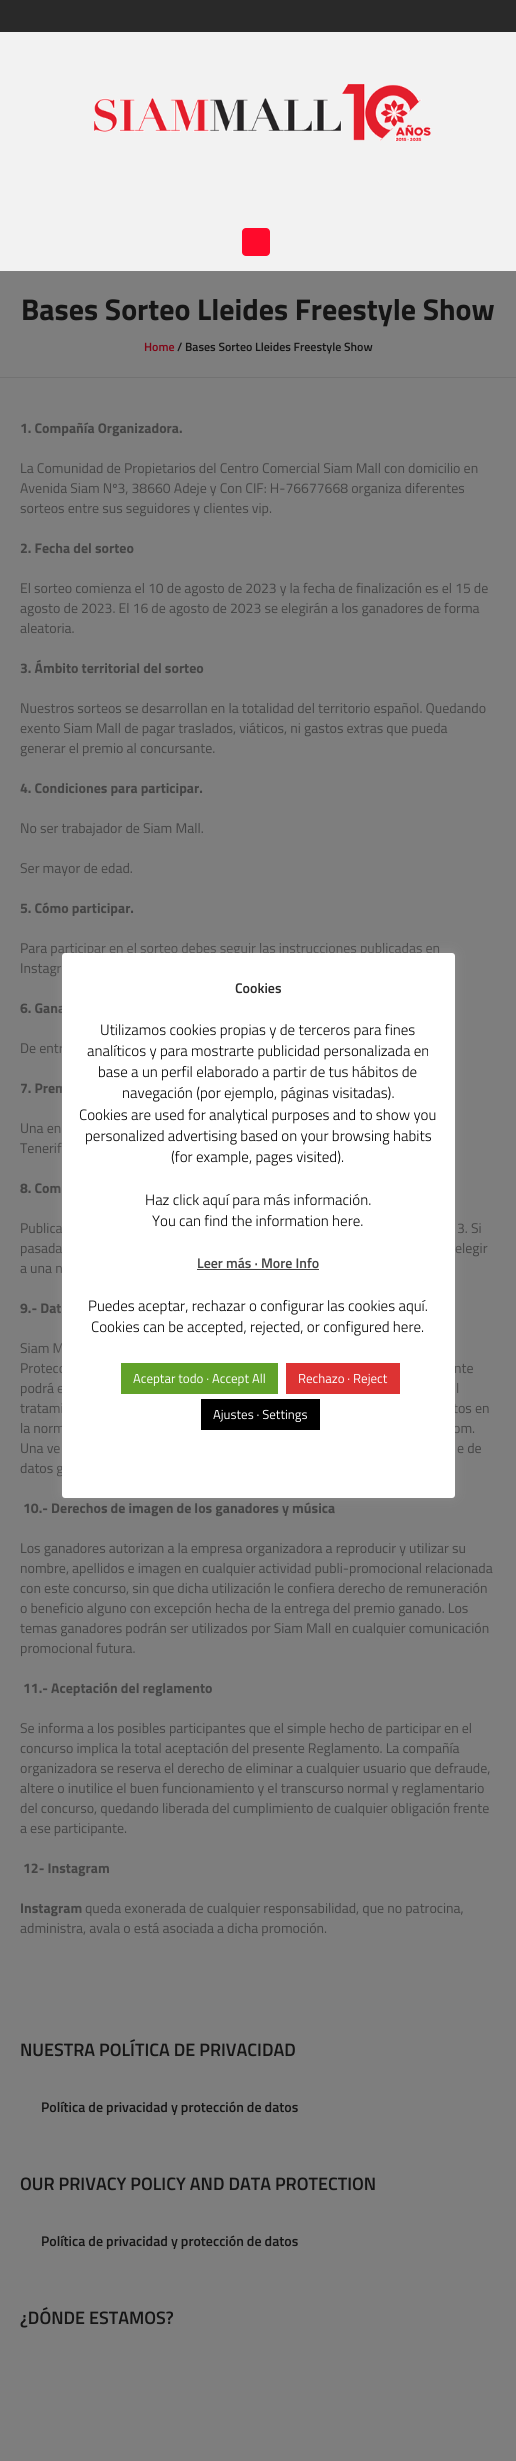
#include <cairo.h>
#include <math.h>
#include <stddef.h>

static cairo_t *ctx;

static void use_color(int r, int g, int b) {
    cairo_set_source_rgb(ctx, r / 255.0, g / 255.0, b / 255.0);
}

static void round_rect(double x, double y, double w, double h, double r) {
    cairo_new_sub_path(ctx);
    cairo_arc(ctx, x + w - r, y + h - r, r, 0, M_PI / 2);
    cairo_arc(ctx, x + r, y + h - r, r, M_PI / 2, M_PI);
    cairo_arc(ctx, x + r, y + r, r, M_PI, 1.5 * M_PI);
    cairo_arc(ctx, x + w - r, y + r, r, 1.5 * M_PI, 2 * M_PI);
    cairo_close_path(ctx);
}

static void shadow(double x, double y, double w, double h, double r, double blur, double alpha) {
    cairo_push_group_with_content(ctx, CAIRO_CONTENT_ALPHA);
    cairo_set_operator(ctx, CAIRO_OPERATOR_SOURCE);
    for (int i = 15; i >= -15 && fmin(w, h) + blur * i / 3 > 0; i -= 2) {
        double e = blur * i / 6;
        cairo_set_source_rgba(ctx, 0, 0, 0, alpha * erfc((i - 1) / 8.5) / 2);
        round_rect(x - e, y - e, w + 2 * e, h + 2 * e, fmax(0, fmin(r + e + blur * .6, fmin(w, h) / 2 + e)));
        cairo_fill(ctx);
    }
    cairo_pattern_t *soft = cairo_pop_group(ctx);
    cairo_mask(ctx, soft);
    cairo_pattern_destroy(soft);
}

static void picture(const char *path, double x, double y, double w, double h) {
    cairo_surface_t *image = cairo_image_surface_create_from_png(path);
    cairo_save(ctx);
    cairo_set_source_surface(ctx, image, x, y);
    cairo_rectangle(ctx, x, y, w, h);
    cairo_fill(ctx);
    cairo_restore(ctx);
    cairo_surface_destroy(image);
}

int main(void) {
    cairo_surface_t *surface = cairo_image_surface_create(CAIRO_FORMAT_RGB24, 516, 2461);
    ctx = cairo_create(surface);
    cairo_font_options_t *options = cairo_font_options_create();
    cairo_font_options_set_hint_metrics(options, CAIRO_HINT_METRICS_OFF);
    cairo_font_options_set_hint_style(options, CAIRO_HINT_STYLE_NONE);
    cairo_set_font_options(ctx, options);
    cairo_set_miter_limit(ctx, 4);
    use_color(126, 126, 126);
    cairo_paint(ctx);
    use_color(41, 41, 41);
    cairo_rectangle(ctx, 0, 0, 516, 32);
    cairo_fill(ctx);
    use_color(242, 242, 242);
    cairo_rectangle(ctx, 0, 32, 516, 239);
    cairo_fill(ctx);
    picture("img1.png", 94, 84, 337, 57);
    use_color(255, 10, 43);
    round_rect(242, 228, 28, 28, 4);
    cairo_fill(ctx);
    use_color(114, 114, 114);
    cairo_rectangle(ctx, 0, 377, 516, 1);
    cairo_fill(ctx);
    cairo_select_font_face(ctx, "Titillium Web", CAIRO_FONT_SLANT_NORMAL, CAIRO_FONT_WEIGHT_BOLD);
    cairo_set_font_size(ctx, 30);
    use_color(21, 21, 21);
    cairo_move_to(ctx, 21, 320);
    cairo_show_text(ctx, "Bases Sorteo Lleides Freestyle Show");
    cairo_select_font_face(ctx, "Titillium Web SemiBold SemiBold", CAIRO_FONT_SLANT_NORMAL, CAIRO_FONT_WEIGHT_NORMAL);
    cairo_set_font_size(ctx, 12);
    use_color(128, 5, 22);
    cairo_move_to(ctx, 144, 351);
    cairo_show_text(ctx, "Home");
    use_color(21, 21, 21);
    cairo_move_to(ctx, 177, 351);
    cairo_show_text(ctx, "/ Bases Sorteo Lleides Freestyle Show");
    cairo_select_font_face(ctx, "Titillium Web", CAIRO_FONT_SLANT_NORMAL, CAIRO_FONT_WEIGHT_BOLD);
    cairo_set_font_size(ctx, 14);
    use_color(68, 68, 68);
    cairo_move_to(ctx, 20, 433);
    cairo_show_text(ctx, "1. Compañía Organizadora.");
    cairo_select_font_face(ctx, "Titillium Web", CAIRO_FONT_SLANT_NORMAL, CAIRO_FONT_WEIGHT_NORMAL);
    cairo_move_to(ctx, 20, 473);
    cairo_show_text(ctx, "La Comunidad de Propietarios del Centro Comercial Siam Mall con domicilio en");
    cairo_move_to(ctx, 20, 493);
    cairo_show_text(ctx, "Avenida Siam Nº3, 38660 Adeje y Con CIF: H-76677668 organiza diferentes");
    cairo_move_to(ctx, 20, 513);
    cairo_show_text(ctx, "sorteos entre sus seguidores y clientes vip.");
    cairo_select_font_face(ctx, "Titillium Web", CAIRO_FONT_SLANT_NORMAL, CAIRO_FONT_WEIGHT_BOLD);
    cairo_move_to(ctx, 20, 553);
    cairo_show_text(ctx, "2. Fecha del sorteo");
    cairo_select_font_face(ctx, "Titillium Web", CAIRO_FONT_SLANT_NORMAL, CAIRO_FONT_WEIGHT_NORMAL);
    cairo_move_to(ctx, 20, 593);
    cairo_show_text(ctx, "El sorteo comienza el 10 de agosto de 2023 y la fecha de finalización es el 15 de");
    cairo_move_to(ctx, 20, 613);
    cairo_show_text(ctx, "agosto de 2023. El 16 de agosto de 2023 se elegirán a los ganadores de forma");
    cairo_move_to(ctx, 20, 633);
    cairo_show_text(ctx, "aleatoria.");
    cairo_select_font_face(ctx, "Titillium Web", CAIRO_FONT_SLANT_NORMAL, CAIRO_FONT_WEIGHT_BOLD);
    cairo_move_to(ctx, 20, 673);
    cairo_show_text(ctx, "3. Ámbito territorial del sorteo");
    cairo_select_font_face(ctx, "Titillium Web", CAIRO_FONT_SLANT_NORMAL, CAIRO_FONT_WEIGHT_NORMAL);
    cairo_move_to(ctx, 20, 713);
    cairo_show_text(ctx, "Nuestros sorteos se desarrollan en la totalidad del territorio español. Quedando");
    cairo_move_to(ctx, 20, 733);
    cairo_show_text(ctx, "exento Siam Mall de pagar traslados, viáticos, ni gastos extras que pueda");
    cairo_move_to(ctx, 20, 753);
    cairo_show_text(ctx, "generar el premio al concursante.");
    cairo_select_font_face(ctx, "Titillium Web", CAIRO_FONT_SLANT_NORMAL, CAIRO_FONT_WEIGHT_BOLD);
    cairo_move_to(ctx, 20, 793);
    cairo_show_text(ctx, "4. Condiciones para participar.");
    cairo_select_font_face(ctx, "Titillium Web", CAIRO_FONT_SLANT_NORMAL, CAIRO_FONT_WEIGHT_NORMAL);
    cairo_move_to(ctx, 20, 833);
    cairo_show_text(ctx, "No ser trabajador de Siam Mall.");
    cairo_move_to(ctx, 20, 873);
    cairo_show_text(ctx, "Ser mayor de edad.");
    cairo_select_font_face(ctx, "Titillium Web", CAIRO_FONT_SLANT_NORMAL, CAIRO_FONT_WEIGHT_BOLD);
    cairo_move_to(ctx, 20, 913);
    cairo_show_text(ctx, "5. Cómo participar.");
    cairo_select_font_face(ctx, "Titillium Web", CAIRO_FONT_SLANT_NORMAL, CAIRO_FONT_WEIGHT_NORMAL);
    cairo_move_to(ctx, 20, 953);
    cairo_show_text(ctx, "Para participar en el sorteo debes seguir las instrucciones publicadas en");
    cairo_move_to(ctx, 20, 973);
    cairo_show_text(ctx, "Instagr");
    cairo_select_font_face(ctx, "Titillium Web", CAIRO_FONT_SLANT_NORMAL, CAIRO_FONT_WEIGHT_BOLD);
    cairo_move_to(ctx, 20, 1013);
    cairo_show_text(ctx, "6. Gana");
    cairo_select_font_face(ctx, "Titillium Web", CAIRO_FONT_SLANT_NORMAL, CAIRO_FONT_WEIGHT_NORMAL);
    cairo_move_to(ctx, 20, 1053);
    cairo_show_text(ctx, "De entr");
    cairo_select_font_face(ctx, "Titillium Web", CAIRO_FONT_SLANT_NORMAL, CAIRO_FONT_WEIGHT_BOLD);
    cairo_move_to(ctx, 20, 1093);
    cairo_show_text(ctx, "7. Prem");
    cairo_select_font_face(ctx, "Titillium Web", CAIRO_FONT_SLANT_NORMAL, CAIRO_FONT_WEIGHT_NORMAL);
    cairo_move_to(ctx, 20, 1133);
    cairo_show_text(ctx, "Una en");
    cairo_move_to(ctx, 20, 1153);
    cairo_show_text(ctx, "Tenerif");
    cairo_select_font_face(ctx, "Titillium Web", CAIRO_FONT_SLANT_NORMAL, CAIRO_FONT_WEIGHT_BOLD);
    cairo_move_to(ctx, 20, 1193);
    cairo_show_text(ctx, "8. Com");
    cairo_select_font_face(ctx, "Titillium Web", CAIRO_FONT_SLANT_NORMAL, CAIRO_FONT_WEIGHT_NORMAL);
    cairo_move_to(ctx, 20, 1233);
    cairo_show_text(ctx, "Publica");
    cairo_move_to(ctx, 457, 1233);
    cairo_show_text(ctx, "3. Si");
    cairo_move_to(ctx, 20, 1253);
    cairo_show_text(ctx, "pasada");
    cairo_move_to(ctx, 455, 1253);
    cairo_show_text(ctx, "elegir");
    cairo_move_to(ctx, 20, 1273);
    cairo_show_text(ctx, "a una n");
    cairo_select_font_face(ctx, "Titillium Web", CAIRO_FONT_SLANT_NORMAL, CAIRO_FONT_WEIGHT_BOLD);
    cairo_move_to(ctx, 20, 1313);
    cairo_show_text(ctx, "9.- Dat");
    cairo_select_font_face(ctx, "Titillium Web", CAIRO_FONT_SLANT_NORMAL, CAIRO_FONT_WEIGHT_NORMAL);
    cairo_move_to(ctx, 20, 1353);
    cairo_show_text(ctx, "Siam M");
    cairo_move_to(ctx, 20, 1373);
    cairo_show_text(ctx, "Protecc");
    cairo_move_to(ctx, 454, 1373);
    cairo_show_text(ctx, "nte");
    cairo_move_to(ctx, 20, 1393);
    cairo_show_text(ctx, "podrá e");
    cairo_move_to(ctx, 456, 1393);
    cairo_show_text(ctx, "l");
    cairo_move_to(ctx, 20, 1413);
    cairo_show_text(ctx, "tratami");
    cairo_move_to(ctx, 453, 1413);
    cairo_show_text(ctx, "tos en");
    cairo_move_to(ctx, 20, 1433);
    cairo_show_text(ctx, "la norm");
    cairo_move_to(ctx, 453, 1433);
    cairo_show_text(ctx, "om.");
    cairo_move_to(ctx, 20, 1453);
    cairo_show_text(ctx, "Una ve");
    cairo_move_to(ctx, 457, 1453);
    cairo_show_text(ctx, "e de");
    cairo_move_to(ctx, 20, 1473);
    cairo_show_text(ctx, "datos g");
    cairo_select_font_face(ctx, "Titillium Web", CAIRO_FONT_SLANT_NORMAL, CAIRO_FONT_WEIGHT_BOLD);
    cairo_move_to(ctx, 23, 1513);
    cairo_show_text(ctx, "10.- Derechos de imagen de los ganadores y música");
    cairo_select_font_face(ctx, "Titillium Web", CAIRO_FONT_SLANT_NORMAL, CAIRO_FONT_WEIGHT_NORMAL);
    cairo_move_to(ctx, 20, 1553);
    cairo_show_text(ctx, "Los ganadores autorizan a la empresa organizadora a reproducir y utilizar su");
    cairo_move_to(ctx, 20, 1573);
    cairo_show_text(ctx, "nombre, apellidos e imagen en cualquier actividad publi-promocional relacionada");
    cairo_move_to(ctx, 20, 1593);
    cairo_show_text(ctx, "con este concurso, sin que dicha utilización le confiera derecho de remuneración");
    cairo_move_to(ctx, 20, 1613);
    cairo_show_text(ctx, "o beneficio alguno con excepción hecha de la entrega del premio ganado. Los");
    cairo_move_to(ctx, 20, 1633);
    cairo_show_text(ctx, "temas ganadores podrán ser utilizados por Siam Mall en cualquier comunicación");
    cairo_move_to(ctx, 20, 1653);
    cairo_show_text(ctx, "promocional futura.");
    cairo_select_font_face(ctx, "Titillium Web", CAIRO_FONT_SLANT_NORMAL, CAIRO_FONT_WEIGHT_BOLD);
    cairo_move_to(ctx, 23, 1693);
    cairo_show_text(ctx, "11.- Aceptación del reglamento");
    cairo_select_font_face(ctx, "Titillium Web", CAIRO_FONT_SLANT_NORMAL, CAIRO_FONT_WEIGHT_NORMAL);
    cairo_move_to(ctx, 20, 1733);
    cairo_show_text(ctx, "Se informa a los posibles participantes que el simple hecho de participar en el");
    cairo_move_to(ctx, 20, 1753);
    cairo_show_text(ctx, "concurso implica la total aceptación del presente Reglamento. La compañía");
    cairo_move_to(ctx, 20, 1773);
    cairo_show_text(ctx, "organizadora se reserva el derecho de eliminar a cualquier usuario que defraude,");
    cairo_move_to(ctx, 20, 1793);
    cairo_show_text(ctx, "altere o inutilice el buen funcionamiento y el transcurso normal y reglamentario");
    cairo_move_to(ctx, 20, 1813);
    cairo_show_text(ctx, "del concurso, quedando liberada del cumplimiento de cualquier obligación frente");
    cairo_move_to(ctx, 20, 1833);
    cairo_show_text(ctx, "a ese participante.");
    cairo_select_font_face(ctx, "Titillium Web", CAIRO_FONT_SLANT_NORMAL, CAIRO_FONT_WEIGHT_BOLD);
    cairo_move_to(ctx, 23, 1873);
    cairo_show_text(ctx, "12- Instagram");
    cairo_move_to(ctx, 20, 1913);
    cairo_show_text(ctx, "Instagram");
    cairo_select_font_face(ctx, "Titillium Web", CAIRO_FONT_SLANT_NORMAL, CAIRO_FONT_WEIGHT_NORMAL);
    cairo_move_to(ctx, 85, 1913);
    cairo_show_text(ctx, "queda exonerada de cualquier responsabilidad, que no patrocina,");
    cairo_move_to(ctx, 20, 1933);
    cairo_show_text(ctx, "administra, avala o está asociada a dicha promoción.");
    cairo_select_font_face(ctx, "Titillium Web SemiBold SemiBold", CAIRO_FONT_SLANT_NORMAL, CAIRO_FONT_WEIGHT_NORMAL);
    cairo_set_font_size(ctx, 18);
    use_color(21, 21, 21);
    cairo_move_to(ctx, 20, 2056);
    cairo_show_text(ctx, "NUESTRA POLÍTICA DE PRIVACIDAD");
    cairo_set_font_size(ctx, 14);
    cairo_move_to(ctx, 41, 2112);
    cairo_show_text(ctx, "Política de privacidad y protección de datos");
    cairo_set_font_size(ctx, 18);
    cairo_move_to(ctx, 20, 2190);
    cairo_show_text(ctx, "OUR PRIVACY POLICY AND DATA PROTECTION");
    cairo_set_font_size(ctx, 14);
    cairo_move_to(ctx, 41, 2246);
    cairo_show_text(ctx, "Política de privacidad y protección de datos");
    cairo_set_font_size(ctx, 18);
    cairo_move_to(ctx, 20, 2324);
    cairo_show_text(ctx, "¿DÓNDE ESTAMOS?");
    use_color(172, 171, 171);
    shadow(62, 952, 393, 545, 3, 5, 0.3);
    use_color(255, 255, 255);
    round_rect(62, 953, 393, 545, 3);
    cairo_fill(ctx);
    cairo_set_font_size(ctx, 14);
    use_color(41, 41, 41);
    cairo_move_to(ctx, 235, 993);
    cairo_show_text(ctx, "Cookies");
    cairo_select_font_face(ctx, "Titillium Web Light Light", CAIRO_FONT_SLANT_NORMAL, CAIRO_FONT_WEIGHT_NORMAL);
    cairo_set_font_size(ctx, 15);
    use_color(0, 0, 0);
    cairo_move_to(ctx, 100, 1035);
    cairo_show_text(ctx, "Utilizamos cookies propias y de terceros para fines");
    cairo_move_to(ctx, 87, 1056);
    cairo_show_text(ctx, "analíticos y para mostrarte publicidad personalizada en");
    cairo_move_to(ctx, 98, 1077);
    cairo_show_text(ctx, "base a un perfil elaborado a partir de tus hábitos de");
    cairo_move_to(ctx, 122, 1098);
    cairo_show_text(ctx, "navegación (por ejemplo, páginas visitadas).");
    cairo_move_to(ctx, 79, 1120);
    cairo_show_text(ctx, "Cookies are used for analytical purposes and to show you");
    cairo_move_to(ctx, 85, 1141);
    cairo_show_text(ctx, "personalized advertising based on your browsing habits");
    cairo_move_to(ctx, 171, 1162);
    cairo_show_text(ctx, "(for example, pages visited).");
    cairo_move_to(ctx, 145, 1205);
    cairo_show_text(ctx, "Haz click aquí para más información.");
    cairo_move_to(ctx, 152, 1226);
    cairo_show_text(ctx, "You can find the information here.");
    cairo_select_font_face(ctx, "Titillium Web SemiBold SemiBold", CAIRO_FONT_SLANT_NORMAL, CAIRO_FONT_WEIGHT_NORMAL);
    cairo_set_font_size(ctx, 14);
    use_color(68, 68, 68);
    cairo_move_to(ctx, 197, 1268);
    cairo_show_text(ctx, "Leer más · More Info");
    cairo_rectangle(ctx, 197, 1269, 122, 1);
    cairo_fill(ctx);
    cairo_select_font_face(ctx, "Titillium Web Light Light", CAIRO_FONT_SLANT_NORMAL, CAIRO_FONT_WEIGHT_NORMAL);
    cairo_set_font_size(ctx, 15);
    use_color(0, 0, 0);
    cairo_move_to(ctx, 88, 1311);
    cairo_show_text(ctx, "Puedes aceptar, rechazar o configurar las cookies aquí.");
    cairo_move_to(ctx, 91, 1332);
    cairo_show_text(ctx, "Cookies can be accepted, rejected, or configured here.");
    use_color(97, 162, 41);
    cairo_rectangle(ctx, 121, 1363, 157, 31);
    cairo_fill(ctx);
    cairo_select_font_face(ctx, "Titillium Web", CAIRO_FONT_SLANT_NORMAL, CAIRO_FONT_WEIGHT_NORMAL);
    cairo_set_font_size(ctx, 13);
    use_color(255, 255, 255);
    cairo_move_to(ctx, 133, 1383);
    cairo_show_text(ctx, "Aceptar todo · Accept All");
    use_color(221, 51, 51);
    cairo_rectangle(ctx, 286, 1363, 114, 31);
    cairo_fill(ctx);
    use_color(255, 255, 255);
    cairo_move_to(ctx, 298, 1383);
    cairo_show_text(ctx, "Rechazo · Reject");
    use_color(0, 0, 0);
    cairo_rectangle(ctx, 201, 1399, 119, 31);
    cairo_fill(ctx);
    use_color(255, 255, 255);
    cairo_move_to(ctx, 213, 1419);
    cairo_show_text(ctx, "Ajustes · Settings");
    cairo_surface_write_to_png(surface, "result.png");
    cairo_font_options_destroy(options);
    cairo_destroy(ctx);
    cairo_surface_destroy(surface);
    return 0;
}
